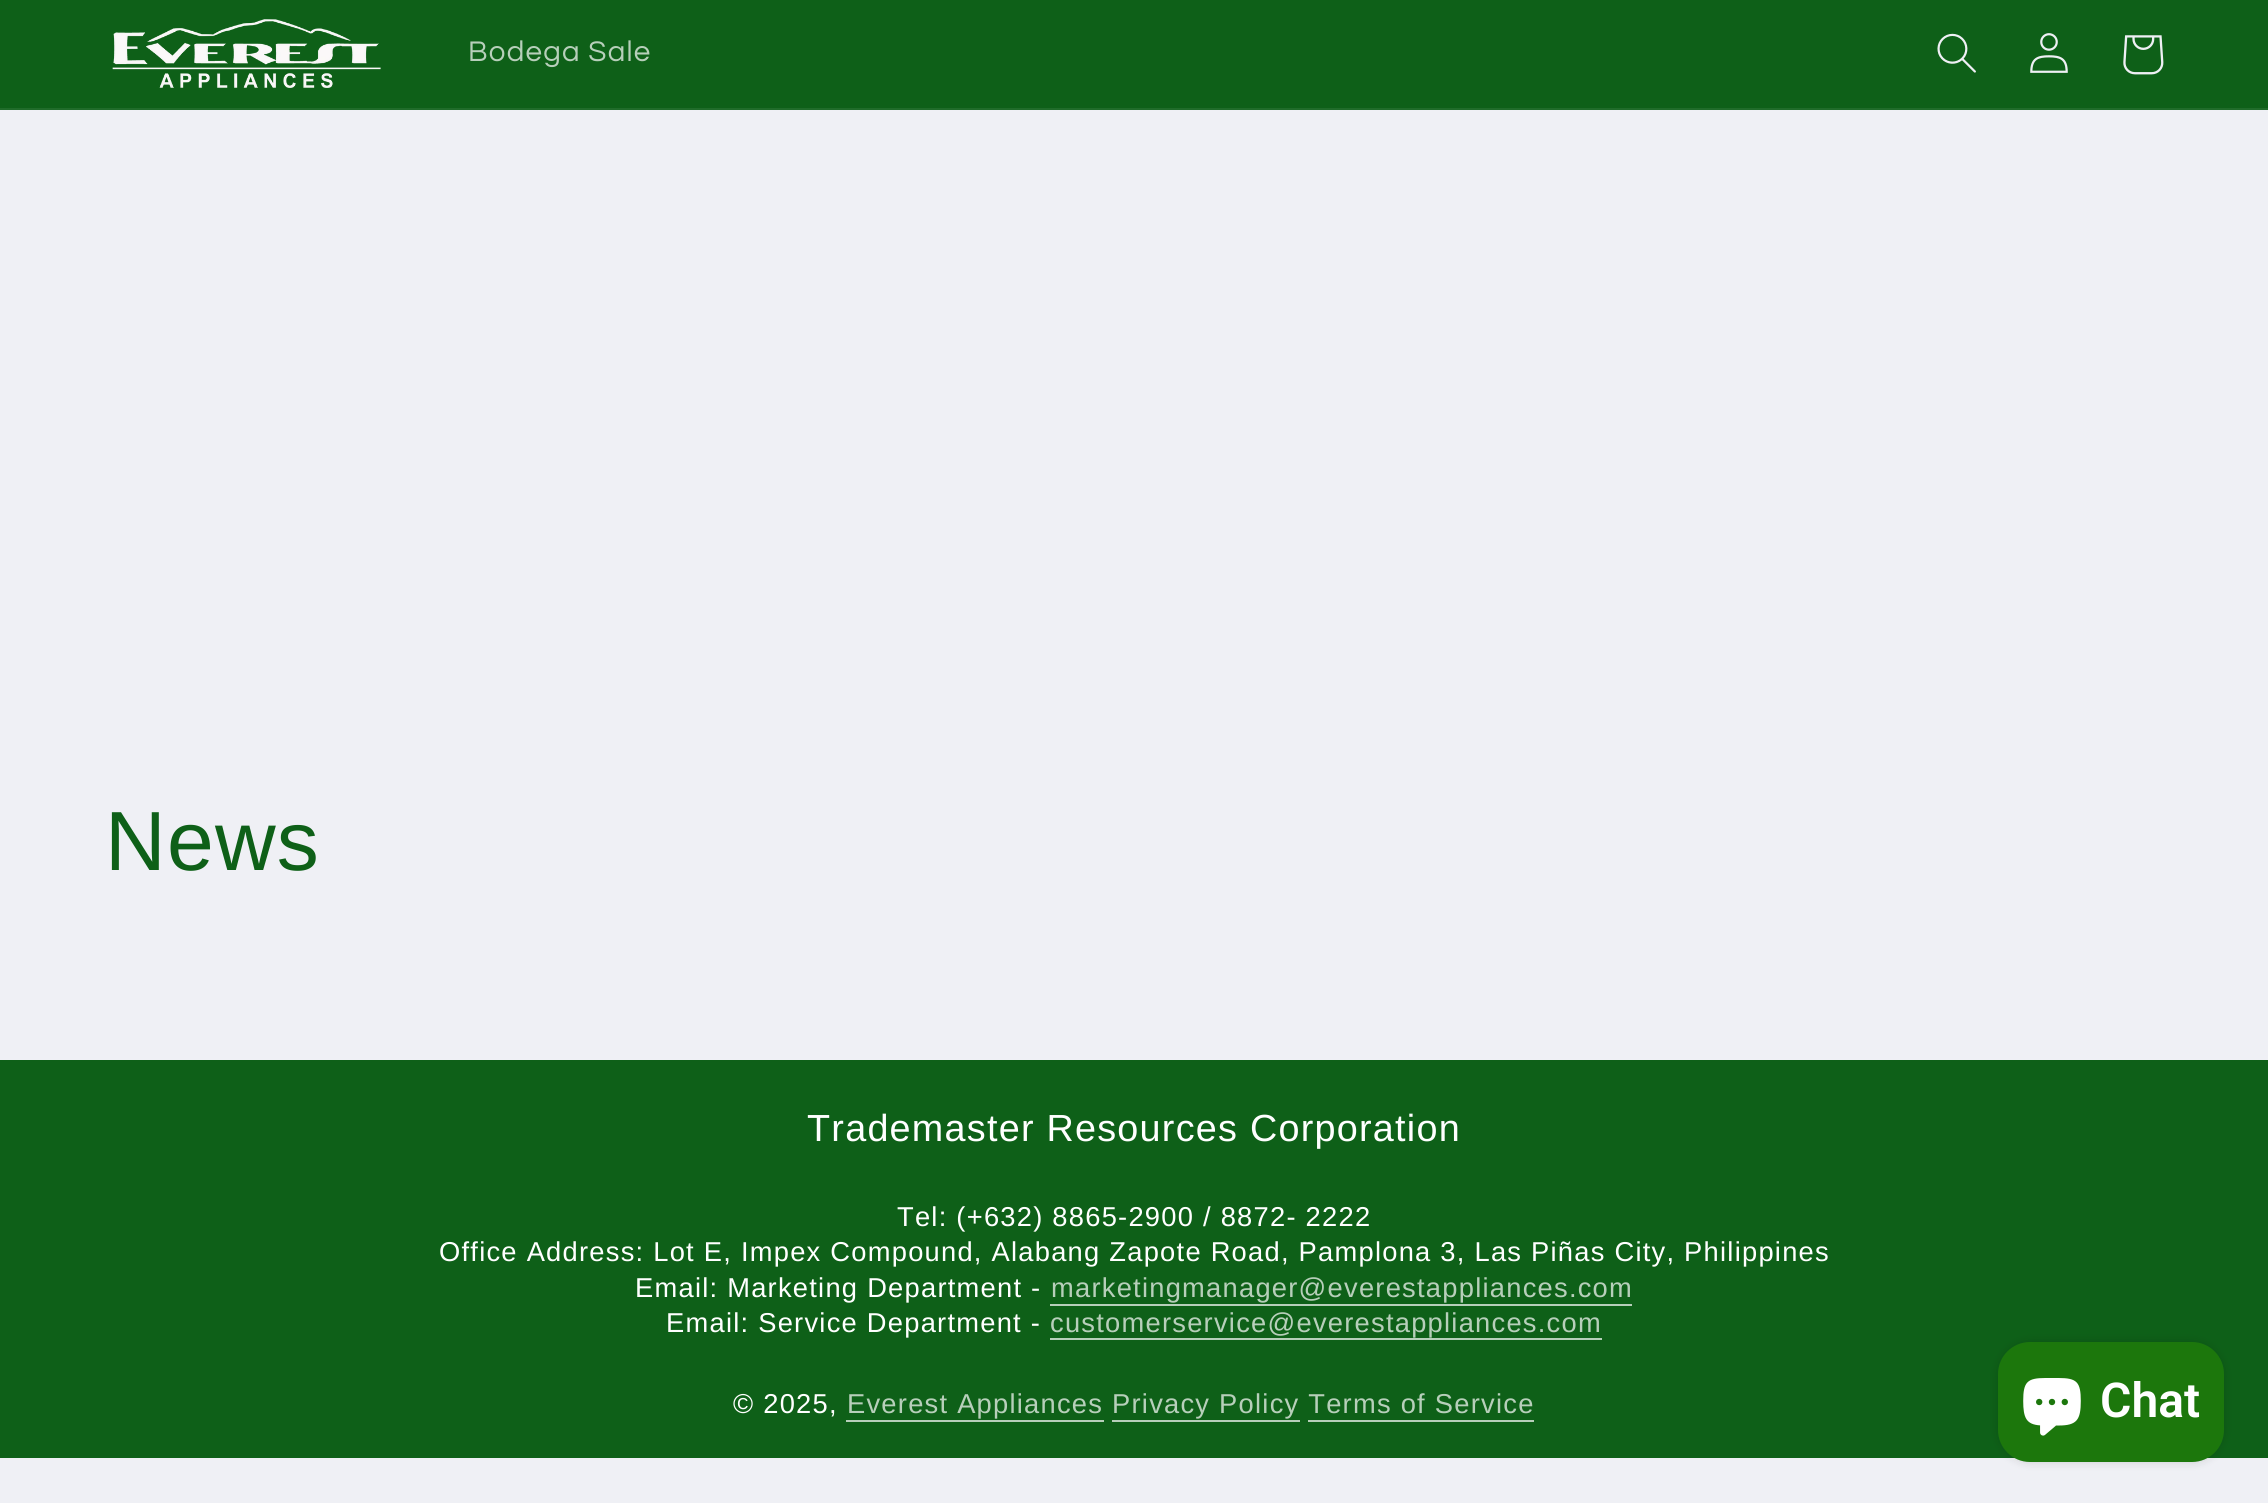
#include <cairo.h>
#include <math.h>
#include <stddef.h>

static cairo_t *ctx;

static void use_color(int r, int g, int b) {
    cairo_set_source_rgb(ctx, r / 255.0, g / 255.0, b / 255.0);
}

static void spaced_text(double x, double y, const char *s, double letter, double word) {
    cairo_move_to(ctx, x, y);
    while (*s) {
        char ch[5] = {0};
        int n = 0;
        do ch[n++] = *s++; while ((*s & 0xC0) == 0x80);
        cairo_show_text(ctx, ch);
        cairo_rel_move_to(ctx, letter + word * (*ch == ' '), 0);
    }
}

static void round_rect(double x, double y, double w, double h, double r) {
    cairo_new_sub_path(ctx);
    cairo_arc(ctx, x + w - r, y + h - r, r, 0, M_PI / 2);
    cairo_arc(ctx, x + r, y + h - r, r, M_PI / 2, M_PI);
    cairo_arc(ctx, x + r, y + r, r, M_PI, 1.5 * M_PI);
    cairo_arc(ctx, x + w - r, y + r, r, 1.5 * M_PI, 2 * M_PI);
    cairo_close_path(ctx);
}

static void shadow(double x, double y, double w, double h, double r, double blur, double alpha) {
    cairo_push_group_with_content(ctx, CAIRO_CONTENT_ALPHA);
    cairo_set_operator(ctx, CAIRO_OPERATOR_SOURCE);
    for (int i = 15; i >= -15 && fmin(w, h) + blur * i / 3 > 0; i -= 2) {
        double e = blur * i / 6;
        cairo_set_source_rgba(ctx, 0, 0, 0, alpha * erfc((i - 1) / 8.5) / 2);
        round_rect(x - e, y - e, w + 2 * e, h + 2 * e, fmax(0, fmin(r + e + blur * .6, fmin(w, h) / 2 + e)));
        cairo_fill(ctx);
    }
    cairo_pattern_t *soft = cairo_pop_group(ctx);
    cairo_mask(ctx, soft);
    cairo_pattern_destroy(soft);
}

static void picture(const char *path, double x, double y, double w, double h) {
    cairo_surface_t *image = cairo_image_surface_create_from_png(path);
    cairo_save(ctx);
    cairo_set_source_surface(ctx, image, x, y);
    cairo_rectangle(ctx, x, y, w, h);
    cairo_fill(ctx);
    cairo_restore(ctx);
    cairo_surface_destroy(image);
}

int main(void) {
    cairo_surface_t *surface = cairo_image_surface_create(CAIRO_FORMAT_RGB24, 2268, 1503);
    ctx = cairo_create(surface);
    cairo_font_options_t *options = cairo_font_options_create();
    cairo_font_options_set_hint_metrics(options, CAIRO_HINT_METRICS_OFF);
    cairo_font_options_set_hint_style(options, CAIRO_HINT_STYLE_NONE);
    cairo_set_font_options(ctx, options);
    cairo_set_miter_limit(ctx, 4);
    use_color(239, 240, 245);
    cairo_paint(ctx);
    use_color(14, 96, 24);
    cairo_rectangle(ctx, 0, 0, 2268, 108);
    cairo_fill(ctx);
    use_color(32, 108, 42);
    cairo_rectangle(ctx, 0, 108, 2268, 2);
    cairo_fill(ctx);
    picture("img1.png", 112, 19, 269, 69);
    cairo_select_font_face(ctx, "Questrial", CAIRO_FONT_SLANT_NORMAL, CAIRO_FONT_WEIGHT_NORMAL);
    cairo_set_font_size(ctx, 29.5);
    use_color(183, 207, 186);
    spaced_text(468, 61, "Bodega Sale", 1.25, 0);
    picture("img2.png", 1937, 33, 39, 40);
    picture("img3.png", 2030, 33, 38, 40);
    picture("img4.png", 2123, 35, 41, 40);
    cairo_select_font_face(ctx, "Arimo", CAIRO_FONT_SLANT_NORMAL, CAIRO_FONT_WEIGHT_NORMAL);
    cairo_set_font_size(ctx, 84);
    use_color(14, 96, 24);
    spaced_text(105, 870, "News", 1.25, 0);
    cairo_rectangle(ctx, 0, 1060, 2268, 398);
    cairo_fill(ctx);
    cairo_set_font_size(ctx, 37.75);
    use_color(255, 255, 255);
    spaced_text(807, 1141, "Trademaster Resources Corporation", 1.25, 0);
    cairo_set_font_size(ctx, 27.3);
    spaced_text(897, 1226, "Tel: (+632) 8865-2900 / 8872- 2222", 1.25, 0);
    spaced_text(439, 1261, "Office Address: Lot E, Impex Compound, Alabang Zapote Road, Pamplona 3, Las Piñas City, Philippines", 1.25, 0);
    spaced_text(635, 1297, "Email: Marketing Department -", 1.25, 0);
    use_color(183, 207, 186);
    spaced_text(1051, 1297, "marketingmanager@everestappliances.com", 1.25, 0);
    cairo_rectangle(ctx, 1050, 1304, 582, 2);
    cairo_fill(ctx);
    use_color(255, 255, 255);
    spaced_text(666, 1332, "Email: Service Department -", 1.25, 0);
    use_color(183, 207, 186);
    spaced_text(1050, 1332, "customerservice@everestappliances.com", 1.25, 0);
    cairo_rectangle(ctx, 1050, 1338, 552, 2);
    cairo_fill(ctx);
    use_color(255, 255, 255);
    spaced_text(733, 1413, "© 2025,", 1.25, 0);
    use_color(183, 207, 186);
    spaced_text(847, 1413, "Everest Appliances Privacy Policy Terms of Service", 1.25, 0);
    cairo_rectangle(ctx, 846, 1420, 258, 2);
    cairo_fill(ctx);
    cairo_rectangle(ctx, 1112, 1420, 188, 2);
    cairo_fill(ctx);
    cairo_rectangle(ctx, 1308, 1420, 226, 2);
    cairo_fill(ctx);
    use_color(0, 0, 0);
    shadow(1998, 1342, 226, 120, 32, 5, 0.15);
    use_color(28, 119, 12);
    round_rect(1998, 1342, 226, 120, 32);
    cairo_fill(ctx);
    picture("img5.png", 2023, 1378, 58, 58);
    cairo_select_font_face(ctx, "Roboto SemiBold", CAIRO_FONT_SLANT_NORMAL, CAIRO_FONT_WEIGHT_NORMAL);
    cairo_set_font_size(ctx, 48);
    use_color(255, 255, 255);
    cairo_move_to(ctx, 2100, 1417);
    cairo_show_text(ctx, "Chat");
    cairo_surface_write_to_png(surface, "result.png");
    cairo_font_options_destroy(options);
    cairo_destroy(ctx);
    cairo_surface_destroy(surface);
    return 0;
}
